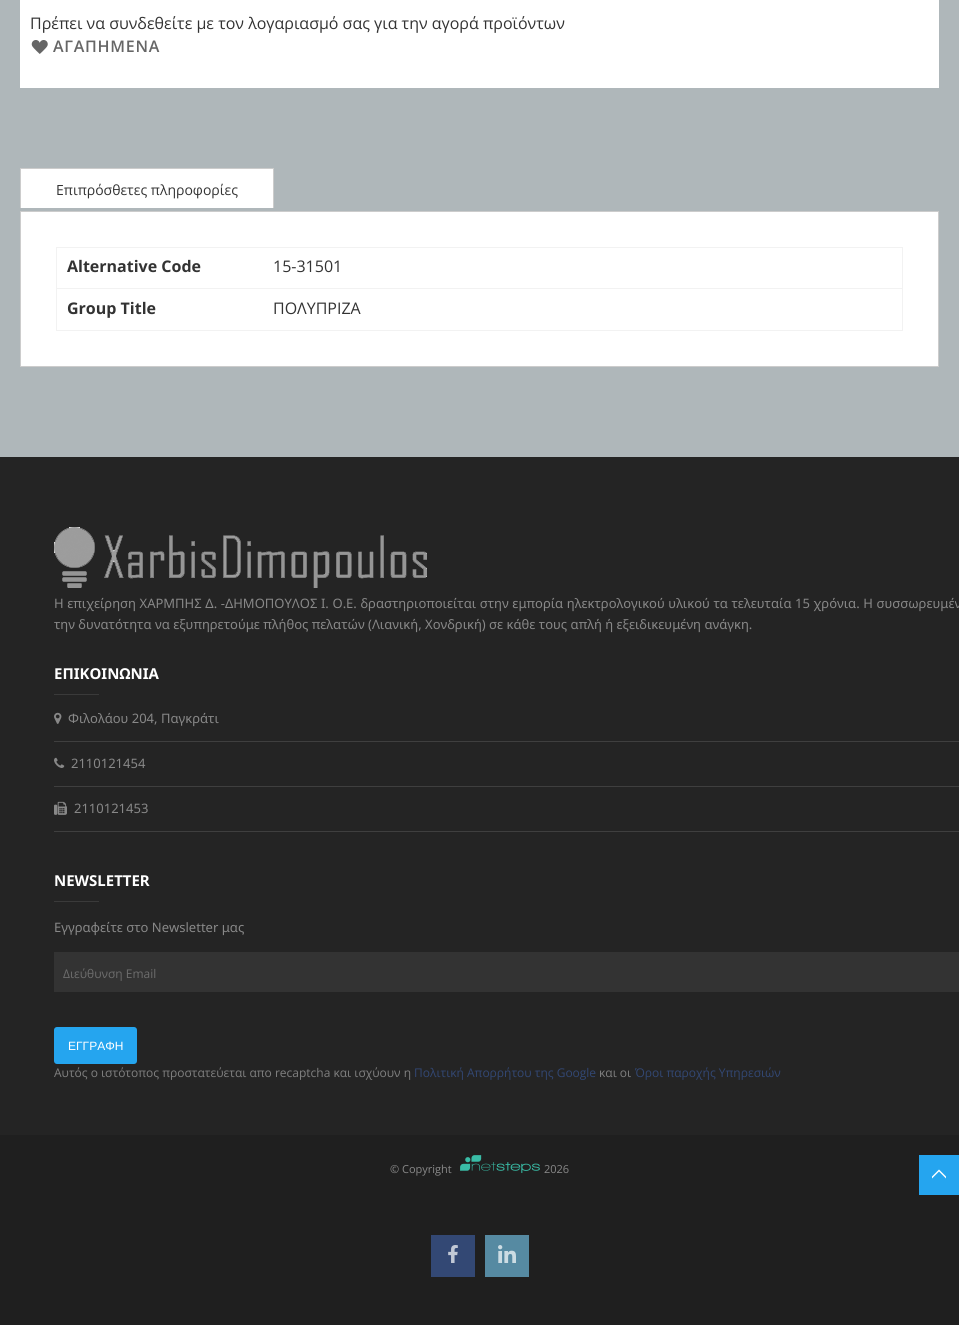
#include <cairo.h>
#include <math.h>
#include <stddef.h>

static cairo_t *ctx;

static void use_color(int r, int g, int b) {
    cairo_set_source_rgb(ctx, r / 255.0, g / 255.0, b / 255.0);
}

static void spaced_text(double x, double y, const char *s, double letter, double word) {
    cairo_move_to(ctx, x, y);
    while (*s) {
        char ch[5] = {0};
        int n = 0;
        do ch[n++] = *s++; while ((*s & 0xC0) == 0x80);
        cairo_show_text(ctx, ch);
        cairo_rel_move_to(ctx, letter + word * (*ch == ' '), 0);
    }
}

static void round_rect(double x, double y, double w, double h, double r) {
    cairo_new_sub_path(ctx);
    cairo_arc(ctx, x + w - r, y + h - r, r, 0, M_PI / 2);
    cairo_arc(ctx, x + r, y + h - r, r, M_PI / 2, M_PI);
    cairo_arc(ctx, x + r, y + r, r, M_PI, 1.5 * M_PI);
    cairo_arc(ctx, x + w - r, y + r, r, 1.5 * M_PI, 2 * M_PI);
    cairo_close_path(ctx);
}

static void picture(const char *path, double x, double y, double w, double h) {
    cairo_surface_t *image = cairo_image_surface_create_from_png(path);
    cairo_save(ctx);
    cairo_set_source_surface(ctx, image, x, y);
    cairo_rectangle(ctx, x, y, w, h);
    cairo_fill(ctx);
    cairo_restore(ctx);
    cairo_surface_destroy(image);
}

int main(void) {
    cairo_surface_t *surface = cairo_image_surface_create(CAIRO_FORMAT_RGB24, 959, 1325);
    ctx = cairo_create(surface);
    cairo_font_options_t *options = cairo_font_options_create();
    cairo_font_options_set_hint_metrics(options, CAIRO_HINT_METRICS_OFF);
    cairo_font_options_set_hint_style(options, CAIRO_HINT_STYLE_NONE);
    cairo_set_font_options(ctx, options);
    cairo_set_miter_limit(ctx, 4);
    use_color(175, 183, 186);
    cairo_paint(ctx);
    use_color(255, 255, 255);
    cairo_rectangle(ctx, 20, 0, 919, 88);
    cairo_fill(ctx);
    cairo_select_font_face(ctx, "Open Sans", CAIRO_FONT_SLANT_NORMAL, CAIRO_FONT_WEIGHT_NORMAL);
    cairo_set_font_size(ctx, 16);
    use_color(51, 51, 51);
    cairo_move_to(ctx, 30, 29);
    cairo_show_text(ctx, "Πρέπει να συνδεθείτε με τον λογαριασμό σας για την αγορά προϊόντων");
    picture("img1.png", 31, 40, 17, 14);
    cairo_select_font_face(ctx, "Open Sans SemiBold", CAIRO_FONT_SLANT_NORMAL, CAIRO_FONT_WEIGHT_NORMAL);
    use_color(102, 102, 102);
    spaced_text(53, 52, "ΑΓΑΠΗΜΕΝΑ", 0.75, 0);
    use_color(255, 255, 255);
    cairo_rectangle(ctx, 21, 169, 252, 39);
    cairo_fill(ctx);
    use_color(204, 204, 204);
    cairo_rectangle(ctx, 20, 168, 254, 1);
    cairo_fill(ctx);
    cairo_rectangle(ctx, 273, 168, 1, 40);
    cairo_fill(ctx);
    cairo_rectangle(ctx, 20, 168, 1, 40);
    cairo_fill(ctx);
    cairo_select_font_face(ctx, "Open Sans", CAIRO_FONT_SLANT_NORMAL, CAIRO_FONT_WEIGHT_NORMAL);
    cairo_set_font_size(ctx, 14);
    use_color(51, 51, 51);
    cairo_move_to(ctx, 56, 195);
    cairo_show_text(ctx, "Επιπρόσθετες πληροφορίες");
    use_color(255, 255, 255);
    cairo_rectangle(ctx, 20.5, 211.5, 918, 155);
    cairo_fill_preserve(ctx);
    use_color(204, 204, 204);
    cairo_set_line_width(ctx, 1);
    cairo_stroke(ctx);
    use_color(242, 242, 242);
    cairo_rectangle(ctx, 56, 247, 847, 1);
    cairo_fill(ctx);
    cairo_rectangle(ctx, 902, 247, 1, 84);
    cairo_fill(ctx);
    cairo_rectangle(ctx, 56, 330, 847, 1);
    cairo_fill(ctx);
    cairo_rectangle(ctx, 56, 247, 1, 84);
    cairo_fill(ctx);
    cairo_rectangle(ctx, 56, 288, 847, 1);
    cairo_fill(ctx);
    cairo_select_font_face(ctx, "Open Sans", CAIRO_FONT_SLANT_NORMAL, CAIRO_FONT_WEIGHT_BOLD);
    cairo_set_font_size(ctx, 16);
    use_color(51, 51, 51);
    cairo_move_to(ctx, 67, 272);
    cairo_show_text(ctx, "Alternative Code");
    cairo_select_font_face(ctx, "Open Sans", CAIRO_FONT_SLANT_NORMAL, CAIRO_FONT_WEIGHT_NORMAL);
    cairo_move_to(ctx, 273, 272);
    cairo_show_text(ctx, "15-31501");
    cairo_select_font_face(ctx, "Open Sans", CAIRO_FONT_SLANT_NORMAL, CAIRO_FONT_WEIGHT_BOLD);
    cairo_move_to(ctx, 67, 314);
    cairo_show_text(ctx, "Group Title");
    cairo_select_font_face(ctx, "Open Sans", CAIRO_FONT_SLANT_NORMAL, CAIRO_FONT_WEIGHT_NORMAL);
    cairo_move_to(ctx, 273, 314);
    cairo_show_text(ctx, "ΠΟΛΥΠΡΙΖΑ");
    use_color(31, 31, 31);
    cairo_rectangle(ctx, 0, 1135, 959, 190);
    cairo_fill(ctx);
    use_color(36, 36, 36);
    cairo_rectangle(ctx, 0, 457, 959, 678);
    cairo_fill(ctx);
    picture("img2.png", 54, 527, 373, 61);
    cairo_select_font_face(ctx, "Noto Sans", CAIRO_FONT_SLANT_NORMAL, CAIRO_FONT_WEIGHT_NORMAL);
    cairo_set_font_size(ctx, 13);
    use_color(136, 136, 136);
    spaced_text(54, 608, "Η επιχείρηση ΧΑΡΜΠΗΣ Δ. -ΔΗΜΟΠΟΥΛΟΣ Ι. Ο.Ε. δραστηριοποιείται στην εμπορία ηλεκτρολογικού υλικού τα τελευταία 15 χρόνια. Η συσσωρευμέν", 0, 0.25);
    cairo_move_to(ctx, 54, 629);
    cairo_show_text(ctx, "την δυνατότητα να εξυπηρετούμε πλήθος πελατών (Λιανική, Χονδρική) σε κάθε τους απλή ή εξειδικευμένη ανάγκη.");
    cairo_select_font_face(ctx, "Noto Sans", CAIRO_FONT_SLANT_NORMAL, CAIRO_FONT_WEIGHT_BOLD);
    cairo_set_font_size(ctx, 15);
    use_color(255, 255, 255);
    cairo_move_to(ctx, 54, 679);
    cairo_show_text(ctx, "ΕΠΙΚΟΙΝΩΝΙΑ");
    use_color(58, 58, 58);
    cairo_rectangle(ctx, 54, 694, 45, 1);
    cairo_fill(ctx);
    use_color(63, 63, 63);
    cairo_rectangle(ctx, 54, 741, 905, 1);
    cairo_fill(ctx);
    picture("img3.png", 54, 712, 8, 12);
    cairo_select_font_face(ctx, "Noto Sans", CAIRO_FONT_SLANT_NORMAL, CAIRO_FONT_WEIGHT_NORMAL);
    cairo_set_font_size(ctx, 13);
    use_color(136, 136, 136);
    cairo_move_to(ctx, 68, 723);
    cairo_show_text(ctx, "Φιλολάου 204, Παγκράτι");
    use_color(63, 63, 63);
    cairo_rectangle(ctx, 54, 786, 905, 1);
    cairo_fill(ctx);
    picture("img4.png", 54, 757, 11, 11);
    use_color(136, 136, 136);
    cairo_move_to(ctx, 71, 768);
    cairo_show_text(ctx, "2110121454");
    use_color(63, 63, 63);
    cairo_rectangle(ctx, 54, 831, 905, 1);
    cairo_fill(ctx);
    picture("img5.png", 54, 801, 13, 14);
    use_color(136, 136, 136);
    cairo_move_to(ctx, 74, 813);
    cairo_show_text(ctx, "2110121453");
    cairo_select_font_face(ctx, "Noto Sans", CAIRO_FONT_SLANT_NORMAL, CAIRO_FONT_WEIGHT_BOLD);
    cairo_set_font_size(ctx, 15);
    use_color(255, 255, 255);
    cairo_move_to(ctx, 54, 886);
    cairo_show_text(ctx, "NEWSLETTER");
    use_color(58, 58, 58);
    cairo_rectangle(ctx, 54, 901, 45, 1);
    cairo_fill(ctx);
    cairo_select_font_face(ctx, "Noto Sans", CAIRO_FONT_SLANT_NORMAL, CAIRO_FONT_WEIGHT_NORMAL);
    cairo_set_font_size(ctx, 13);
    use_color(136, 136, 136);
    cairo_move_to(ctx, 54, 932);
    cairo_show_text(ctx, "Εγγραφείτε στο Newsletter μας");
    use_color(51, 51, 51);
    cairo_rectangle(ctx, 54, 952, 905, 40);
    cairo_fill(ctx);
    cairo_select_font_face(ctx, "Open Sans", CAIRO_FONT_SLANT_NORMAL, CAIRO_FONT_WEIGHT_NORMAL);
    cairo_set_font_size(ctx, 12);
    use_color(109, 109, 109);
    cairo_move_to(ctx, 63, 978);
    cairo_show_text(ctx, "Διεύθυνση Email");
    use_color(37, 165, 239);
    round_rect(54, 1027, 83, 37, 3);
    cairo_fill(ctx);
    cairo_select_font_face(ctx, "Liberation Sans", CAIRO_FONT_SLANT_NORMAL, CAIRO_FONT_WEIGHT_NORMAL);
    use_color(255, 255, 255);
    cairo_move_to(ctx, 68, 1050);
    cairo_show_text(ctx, "ΕΓΓΡΑΦΗ");
    cairo_select_font_face(ctx, "Open Sans", CAIRO_FONT_SLANT_NORMAL, CAIRO_FONT_WEIGHT_NORMAL);
    use_color(128, 128, 128);
    cairo_move_to(ctx, 54, 1077);
    cairo_show_text(ctx, "Αυτός ο ιστότοπος προστατεύεται απο recaptcha και ισχύουν η");
    use_color(50, 71, 115);
    cairo_move_to(ctx, 414, 1077);
    cairo_show_text(ctx, "Πολιτική Απορρήτου της Google");
    use_color(128, 128, 128);
    cairo_move_to(ctx, 599, 1077);
    cairo_show_text(ctx, "και οι");
    use_color(50, 71, 115);
    cairo_move_to(ctx, 635, 1077);
    cairo_show_text(ctx, "Όροι παροχής Υπηρεσιών");
    cairo_set_font_size(ctx, 11);
    use_color(136, 136, 136);
    cairo_move_to(ctx, 390, 1173);
    cairo_show_text(ctx, "© Copyright");
    picture("img6.png", 460, 1155, 80, 18);
    cairo_move_to(ctx, 544, 1173);
    cairo_show_text(ctx, "2026");
    use_color(51, 72, 116);
    cairo_rectangle(ctx, 431, 1235, 44, 42);
    cairo_fill(ctx);
    picture("img7.png", 448, 1245, 10, 18);
    use_color(86, 138, 162);
    cairo_rectangle(ctx, 485, 1235, 44, 42);
    cairo_fill(ctx);
    picture("img8.png", 498, 1245, 18, 18);
    use_color(37, 165, 239);
    cairo_rectangle(ctx, 919, 1155, 40, 40);
    cairo_fill(ctx);
    use_color(255, 255, 255);
    cairo_new_path(ctx);
    cairo_move_to(ctx, 932, 1178.5);
    cairo_line_to(ctx, 932, 1176.5);
    cairo_line_to(ctx, 939, 1169.5);
    cairo_line_to(ctx, 939, 1171.5);
    cairo_close_path(ctx);
    cairo_move_to(ctx, 939, 1171.5);
    cairo_line_to(ctx, 939, 1169.5);
    cairo_line_to(ctx, 946, 1176.5);
    cairo_line_to(ctx, 946, 1178.5);
    cairo_close_path(ctx);
    cairo_fill(ctx);
    cairo_surface_write_to_png(surface, "result.png");
    cairo_font_options_destroy(options);
    cairo_destroy(ctx);
    cairo_surface_destroy(surface);
    return 0;
}
